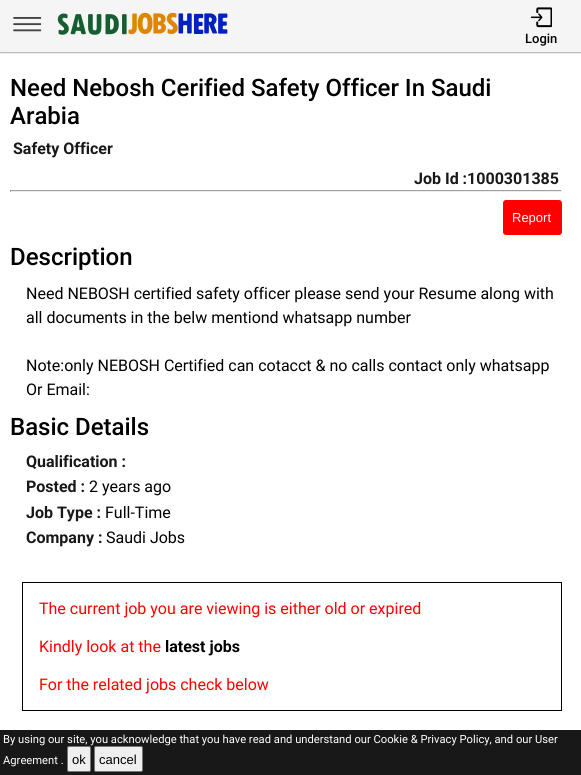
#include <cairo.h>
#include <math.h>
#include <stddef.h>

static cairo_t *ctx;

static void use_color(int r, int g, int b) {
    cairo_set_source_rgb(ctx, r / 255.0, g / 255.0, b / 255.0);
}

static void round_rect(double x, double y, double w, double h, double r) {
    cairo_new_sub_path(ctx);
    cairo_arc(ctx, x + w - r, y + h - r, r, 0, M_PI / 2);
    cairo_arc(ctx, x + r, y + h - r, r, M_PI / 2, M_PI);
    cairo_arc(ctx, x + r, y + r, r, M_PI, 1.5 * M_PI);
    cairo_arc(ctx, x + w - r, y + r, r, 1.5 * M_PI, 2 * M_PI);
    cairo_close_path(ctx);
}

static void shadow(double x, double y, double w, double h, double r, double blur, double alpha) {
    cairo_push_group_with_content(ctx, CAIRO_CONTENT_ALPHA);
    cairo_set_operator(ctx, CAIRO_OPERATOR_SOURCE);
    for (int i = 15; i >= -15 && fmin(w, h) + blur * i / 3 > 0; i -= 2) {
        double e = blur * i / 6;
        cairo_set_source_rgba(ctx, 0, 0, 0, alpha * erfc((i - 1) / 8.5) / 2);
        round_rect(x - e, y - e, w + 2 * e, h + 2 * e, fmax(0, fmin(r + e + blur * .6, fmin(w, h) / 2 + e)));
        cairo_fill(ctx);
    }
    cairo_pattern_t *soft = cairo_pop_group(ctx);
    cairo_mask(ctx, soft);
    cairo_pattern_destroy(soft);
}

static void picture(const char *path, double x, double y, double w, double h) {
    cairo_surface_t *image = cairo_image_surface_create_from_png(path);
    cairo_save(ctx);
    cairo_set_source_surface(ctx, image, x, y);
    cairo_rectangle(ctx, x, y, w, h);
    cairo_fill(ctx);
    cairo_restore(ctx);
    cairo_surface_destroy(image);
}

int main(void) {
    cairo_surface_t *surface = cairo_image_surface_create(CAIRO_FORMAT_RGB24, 581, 775);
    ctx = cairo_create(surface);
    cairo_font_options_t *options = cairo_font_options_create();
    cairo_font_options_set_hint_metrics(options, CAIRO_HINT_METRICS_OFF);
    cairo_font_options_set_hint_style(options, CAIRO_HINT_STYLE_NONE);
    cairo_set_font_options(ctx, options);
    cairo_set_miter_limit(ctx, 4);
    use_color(255, 255, 255);
    cairo_paint(ctx);
    use_color(0, 0, 0);
    shadow(0, 0, 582, 53, 0, 0.5, 0.3);
    use_color(245, 245, 245);
    cairo_rectangle(ctx, 0, 0, 581, 52);
    cairo_fill(ctx);
    picture("img1.png", 13, 17, 29, 15);
    picture("img2.png", 57, 12, 171, 23);
    picture("img3.png", 530, 7, 22, 21);
    cairo_select_font_face(ctx, "Roboto Medium", CAIRO_FONT_SLANT_NORMAL, CAIRO_FONT_WEIGHT_NORMAL);
    cairo_set_font_size(ctx, 13);
    use_color(0, 0, 0);
    cairo_move_to(ctx, 525, 43);
    cairo_show_text(ctx, "Login");
    cairo_set_font_size(ctx, 24);
    cairo_move_to(ctx, 10, 96);
    cairo_show_text(ctx, "Need Nebosh Cerified Safety Officer In Saudi");
    cairo_move_to(ctx, 10, 124);
    cairo_show_text(ctx, "Arabia");
    cairo_select_font_face(ctx, "Roboto", CAIRO_FONT_SLANT_NORMAL, CAIRO_FONT_WEIGHT_BOLD);
    cairo_set_font_size(ctx, 16);
    use_color(24, 24, 24);
    cairo_move_to(ctx, 13, 154);
    cairo_show_text(ctx, "Safety Officer");
    cairo_move_to(ctx, 414, 184);
    cairo_show_text(ctx, "Job Id :1000301385");
    use_color(159, 159, 159);
    cairo_rectangle(ctx, 10, 190, 552, 1);
    cairo_fill(ctx);
    use_color(238, 238, 238);
    cairo_rectangle(ctx, 561, 190, 1, 2);
    cairo_fill(ctx);
    cairo_rectangle(ctx, 10, 191, 552, 1);
    cairo_fill(ctx);
    use_color(159, 159, 159);
    cairo_rectangle(ctx, 10, 190, 1, 2);
    cairo_fill(ctx);
    use_color(255, 0, 0);
    round_rect(503, 200, 59, 35, 3);
    cairo_fill(ctx);
    cairo_select_font_face(ctx, "Liberation Sans", CAIRO_FONT_SLANT_NORMAL, CAIRO_FONT_WEIGHT_NORMAL);
    cairo_set_font_size(ctx, 13);
    use_color(255, 255, 255);
    cairo_move_to(ctx, 512, 222);
    cairo_show_text(ctx, "Report");
    cairo_select_font_face(ctx, "Roboto Medium", CAIRO_FONT_SLANT_NORMAL, CAIRO_FONT_WEIGHT_NORMAL);
    cairo_set_font_size(ctx, 24);
    use_color(0, 0, 0);
    cairo_move_to(ctx, 10, 265);
    cairo_show_text(ctx, "Description");
    cairo_select_font_face(ctx, "Roboto", CAIRO_FONT_SLANT_NORMAL, CAIRO_FONT_WEIGHT_NORMAL);
    cairo_set_font_size(ctx, 16);
    cairo_move_to(ctx, 26, 299);
    cairo_show_text(ctx, "Need NEBOSH certified safety officer please send your Resume along with");
    cairo_move_to(ctx, 26, 323);
    cairo_show_text(ctx, "all documents in the belw mentiond whatsapp number");
    cairo_move_to(ctx, 26, 371);
    cairo_show_text(ctx, "Note:only NEBOSH Certified can cotacct & no calls contact only whatsapp");
    cairo_move_to(ctx, 26, 395);
    cairo_show_text(ctx, "Or Email:");
    cairo_select_font_face(ctx, "Roboto Medium", CAIRO_FONT_SLANT_NORMAL, CAIRO_FONT_WEIGHT_NORMAL);
    cairo_set_font_size(ctx, 24);
    cairo_move_to(ctx, 10, 435);
    cairo_show_text(ctx, "Basic Details");
    cairo_select_font_face(ctx, "Roboto", CAIRO_FONT_SLANT_NORMAL, CAIRO_FONT_WEIGHT_BOLD);
    cairo_set_font_size(ctx, 16);
    use_color(24, 24, 24);
    cairo_move_to(ctx, 26, 467);
    cairo_show_text(ctx, "Qualification :");
    cairo_move_to(ctx, 26, 492);
    cairo_show_text(ctx, "Posted :");
    cairo_select_font_face(ctx, "Roboto", CAIRO_FONT_SLANT_NORMAL, CAIRO_FONT_WEIGHT_NORMAL);
    use_color(0, 0, 0);
    cairo_move_to(ctx, 89, 492);
    cairo_show_text(ctx, "2 years ago");
    cairo_select_font_face(ctx, "Roboto", CAIRO_FONT_SLANT_NORMAL, CAIRO_FONT_WEIGHT_BOLD);
    use_color(24, 24, 24);
    cairo_move_to(ctx, 26, 518);
    cairo_show_text(ctx, "Job Type :");
    cairo_select_font_face(ctx, "Roboto", CAIRO_FONT_SLANT_NORMAL, CAIRO_FONT_WEIGHT_NORMAL);
    use_color(0, 0, 0);
    cairo_move_to(ctx, 105, 518);
    cairo_show_text(ctx, "Full-Time");
    cairo_select_font_face(ctx, "Roboto", CAIRO_FONT_SLANT_NORMAL, CAIRO_FONT_WEIGHT_BOLD);
    use_color(24, 24, 24);
    cairo_move_to(ctx, 26, 543);
    cairo_show_text(ctx, "Company :");
    cairo_select_font_face(ctx, "Roboto", CAIRO_FONT_SLANT_NORMAL, CAIRO_FONT_WEIGHT_NORMAL);
    use_color(0, 0, 0);
    cairo_move_to(ctx, 106, 543);
    cairo_show_text(ctx, "Saudi Jobs");
    cairo_rectangle(ctx, 22.5, 582.5, 539, 128);
    cairo_set_line_width(ctx, 1);
    cairo_stroke(ctx);
    use_color(255, 0, 0);
    cairo_move_to(ctx, 39, 614);
    cairo_show_text(ctx, "The current job you are viewing is either old or expired");
    cairo_move_to(ctx, 39, 652);
    cairo_show_text(ctx, "Kindly look at the");
    cairo_select_font_face(ctx, "Roboto", CAIRO_FONT_SLANT_NORMAL, CAIRO_FONT_WEIGHT_BOLD);
    use_color(0, 0, 0);
    cairo_move_to(ctx, 165, 652);
    cairo_show_text(ctx, "latest jobs");
    cairo_select_font_face(ctx, "Roboto", CAIRO_FONT_SLANT_NORMAL, CAIRO_FONT_WEIGHT_NORMAL);
    use_color(255, 0, 0);
    cairo_move_to(ctx, 39, 690);
    cairo_show_text(ctx, "For the related jobs check below");
    use_color(24, 24, 24);
    cairo_rectangle(ctx, 0, 730, 581, 45);
    cairo_fill(ctx);
    cairo_set_font_size(ctx, 11.2);
    use_color(255, 255, 255);
    cairo_move_to(ctx, 3, 743);
    cairo_show_text(ctx, "By using our site, you acknowledge that you have read and understand our Cookie & Privacy Policy, and our User");
    cairo_move_to(ctx, 3, 764);
    cairo_show_text(ctx, "Agreement .");
    use_color(239, 239, 239);
    round_rect(67.5, 746.5, 23, 25, 1.5);
    cairo_fill_preserve(ctx);
    use_color(118, 118, 118);
    cairo_stroke(ctx);
    cairo_select_font_face(ctx, "Liberation Sans", CAIRO_FONT_SLANT_NORMAL, CAIRO_FONT_WEIGHT_NORMAL);
    cairo_set_font_size(ctx, 13);
    use_color(0, 0, 0);
    cairo_move_to(ctx, 72, 764);
    cairo_show_text(ctx, "ok");
    use_color(239, 239, 239);
    round_rect(94.5, 746.5, 48, 25, 1.5);
    cairo_fill_preserve(ctx);
    use_color(118, 118, 118);
    cairo_stroke(ctx);
    use_color(0, 0, 0);
    cairo_move_to(ctx, 99, 764);
    cairo_show_text(ctx, "cancel");
    cairo_surface_write_to_png(surface, "result.png");
    cairo_font_options_destroy(options);
    cairo_destroy(ctx);
    cairo_surface_destroy(surface);
    return 0;
}
